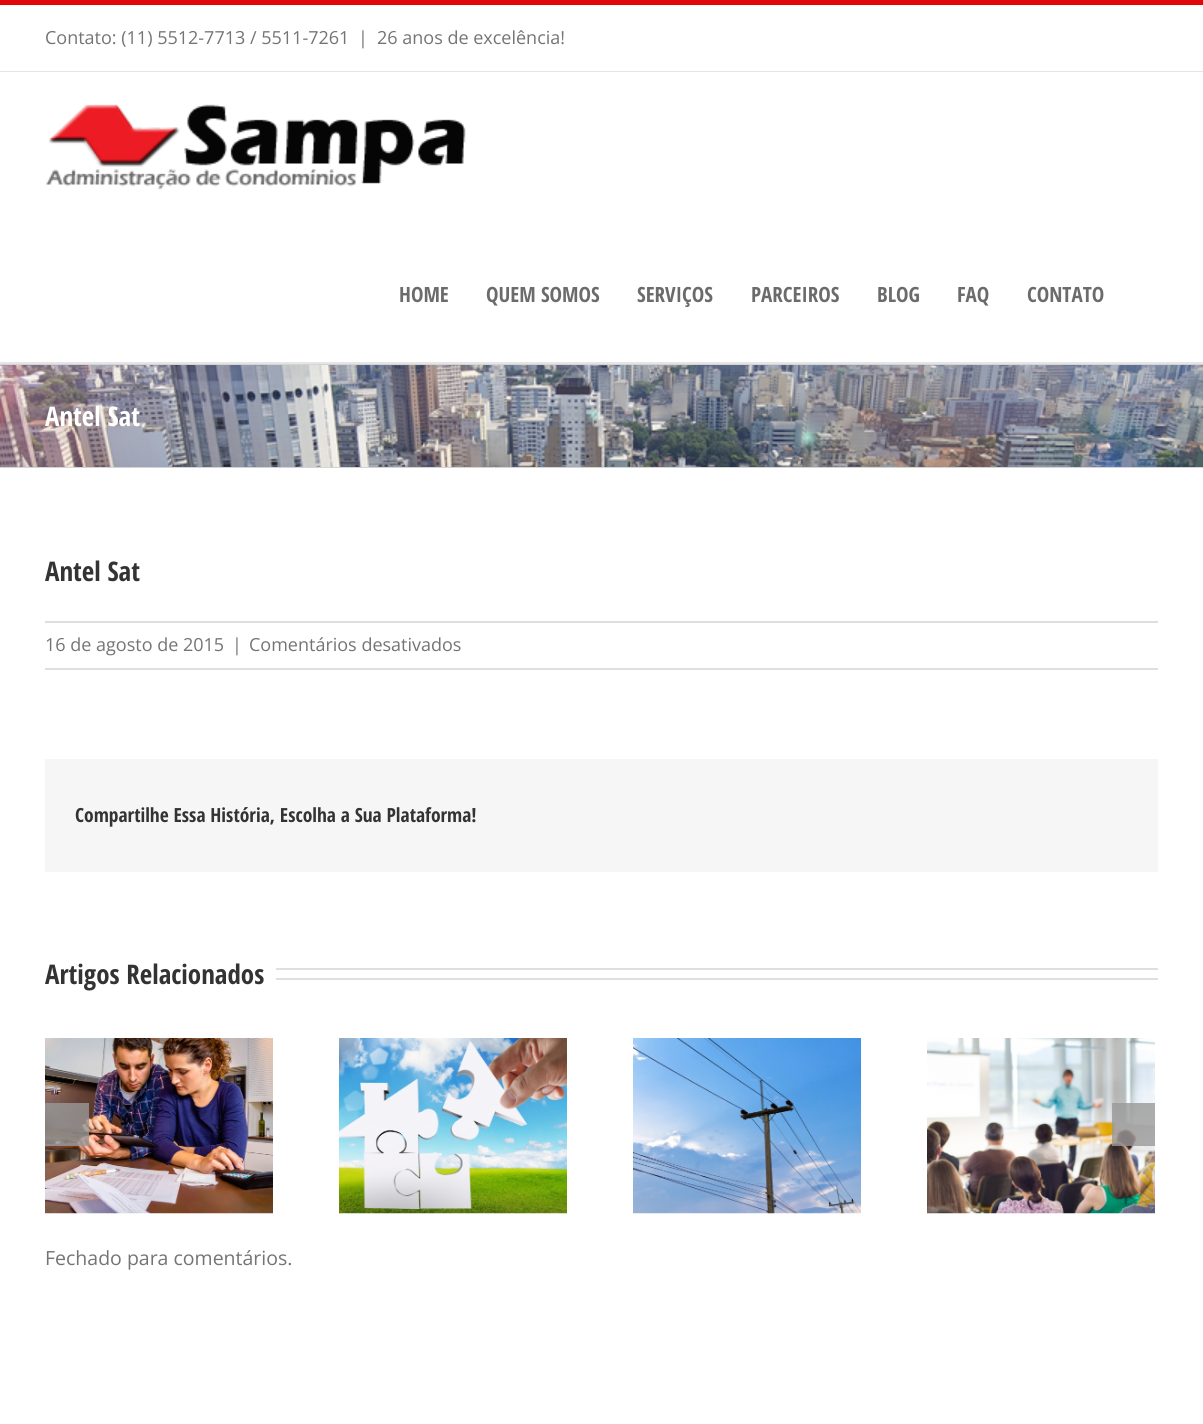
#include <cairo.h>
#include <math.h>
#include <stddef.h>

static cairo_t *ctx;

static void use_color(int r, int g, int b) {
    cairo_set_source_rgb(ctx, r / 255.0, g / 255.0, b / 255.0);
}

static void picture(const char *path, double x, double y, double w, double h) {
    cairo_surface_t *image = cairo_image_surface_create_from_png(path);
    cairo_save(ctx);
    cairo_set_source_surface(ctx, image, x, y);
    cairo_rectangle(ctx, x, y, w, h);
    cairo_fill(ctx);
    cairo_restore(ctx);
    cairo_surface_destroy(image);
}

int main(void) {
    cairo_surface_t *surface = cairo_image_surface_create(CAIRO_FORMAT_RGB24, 1203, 1424);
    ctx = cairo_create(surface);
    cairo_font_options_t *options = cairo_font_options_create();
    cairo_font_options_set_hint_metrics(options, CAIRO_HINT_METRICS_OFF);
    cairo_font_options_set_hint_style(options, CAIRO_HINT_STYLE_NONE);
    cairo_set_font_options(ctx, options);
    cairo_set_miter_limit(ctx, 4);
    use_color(255, 255, 255);
    cairo_paint(ctx);
    use_color(225, 7, 7);
    cairo_rectangle(ctx, 0, 0, 1203, 5);
    cairo_fill(ctx);
    use_color(229, 229, 229);
    cairo_rectangle(ctx, 0, 71, 1203, 1);
    cairo_fill(ctx);
    cairo_select_font_face(ctx, "Open Sans", CAIRO_FONT_SLANT_NORMAL, CAIRO_FONT_WEIGHT_NORMAL);
    cairo_set_font_size(ctx, 18);
    use_color(116, 116, 116);
    cairo_move_to(ctx, 45, 44);
    cairo_show_text(ctx, "Contato: (11) 5512-7713 / 5511-7261");
    cairo_move_to(ctx, 358, 44);
    cairo_show_text(ctx, "|");
    cairo_move_to(ctx, 377, 44);
    cairo_show_text(ctx, "26 anos de excelência!");
    use_color(229, 229, 229);
    cairo_rectangle(ctx, 0, 362, 1203, 2);
    cairo_fill(ctx);
    picture("img1.png", 46, 104, 420, 86);
    cairo_select_font_face(ctx, "Open Sans Condensed", CAIRO_FONT_SLANT_NORMAL, CAIRO_FONT_WEIGHT_BOLD);
    cairo_set_font_size(ctx, 21);
    use_color(107, 107, 107);
    cairo_move_to(ctx, 399, 302);
    cairo_show_text(ctx, "HOME");
    cairo_move_to(ctx, 486, 302);
    cairo_show_text(ctx, "QUEM SOMOS");
    cairo_move_to(ctx, 637, 302);
    cairo_show_text(ctx, "SERVIÇOS");
    cairo_move_to(ctx, 751, 302);
    cairo_show_text(ctx, "PARCEIROS");
    cairo_move_to(ctx, 877, 302);
    cairo_show_text(ctx, "BLOG");
    cairo_move_to(ctx, 957, 302);
    cairo_show_text(ctx, "FAQ");
    cairo_move_to(ctx, 1027, 302);
    cairo_show_text(ctx, "CONTATO");
    picture("img2.png", 0, 365, 1203, 102);
    use_color(210, 211, 212);
    cairo_rectangle(ctx, 0, 364, 1203, 1);
    cairo_fill(ctx);
    cairo_rectangle(ctx, 0, 467, 1203, 1);
    cairo_fill(ctx);
    cairo_set_font_size(ctx, 27);
    use_color(255, 255, 255);
    cairo_move_to(ctx, 45, 426);
    cairo_show_text(ctx, "Antel Sat");
    use_color(51, 51, 51);
    cairo_move_to(ctx, 45, 581);
    cairo_show_text(ctx, "Antel Sat");
    use_color(224, 222, 222);
    cairo_rectangle(ctx, 45, 621, 1113, 2);
    cairo_fill(ctx);
    cairo_rectangle(ctx, 45, 668, 1113, 2);
    cairo_fill(ctx);
    cairo_select_font_face(ctx, "Open Sans", CAIRO_FONT_SLANT_NORMAL, CAIRO_FONT_WEIGHT_NORMAL);
    cairo_set_font_size(ctx, 18);
    use_color(116, 116, 116);
    cairo_move_to(ctx, 45, 651);
    cairo_show_text(ctx, "16 de agosto de 2015");
    cairo_move_to(ctx, 232, 651);
    cairo_show_text(ctx, "|");
    cairo_move_to(ctx, 249, 651);
    cairo_show_text(ctx, "Comentários desativados");
    use_color(246, 246, 246);
    cairo_rectangle(ctx, 45, 759, 1113, 113);
    cairo_fill(ctx);
    cairo_select_font_face(ctx, "Open Sans Condensed", CAIRO_FONT_SLANT_NORMAL, CAIRO_FONT_WEIGHT_BOLD);
    cairo_set_font_size(ctx, 19.5);
    use_color(51, 51, 51);
    cairo_move_to(ctx, 75, 822);
    cairo_show_text(ctx, "Compartilhe Essa História, Escolha a Sua Plataforma!");
    cairo_set_font_size(ctx, 27);
    cairo_move_to(ctx, 45, 984);
    cairo_show_text(ctx, "Artigos Relacionados");
    use_color(224, 222, 222);
    cairo_rectangle(ctx, 276, 968, 882, 2);
    cairo_fill(ctx);
    cairo_rectangle(ctx, 276, 978, 882, 2);
    cairo_fill(ctx);
    picture("img3.png", 45, 1038, 228, 176);
    picture("img4.png", 339, 1038, 228, 176);
    picture("img5.png", 633, 1038, 228, 176);
    picture("img6.png", 927, 1038, 228, 176);
    cairo_set_source_rgba(ctx, 0.6, 0.6, 0.6, 0.8);
    cairo_rectangle(ctx, 45, 1103, 44, 43);
    cairo_fill(ctx);
    cairo_rectangle(ctx, 1112, 1103, 43, 43);
    cairo_fill(ctx);
    cairo_select_font_face(ctx, "Open Sans", CAIRO_FONT_SLANT_NORMAL, CAIRO_FONT_WEIGHT_NORMAL);
    cairo_set_font_size(ctx, 19.5);
    use_color(116, 116, 116);
    cairo_move_to(ctx, 45, 1265);
    cairo_show_text(ctx, "Fechado para comentários.");
    cairo_surface_write_to_png(surface, "result.png");
    cairo_font_options_destroy(options);
    cairo_destroy(ctx);
    cairo_surface_destroy(surface);
    return 0;
}
